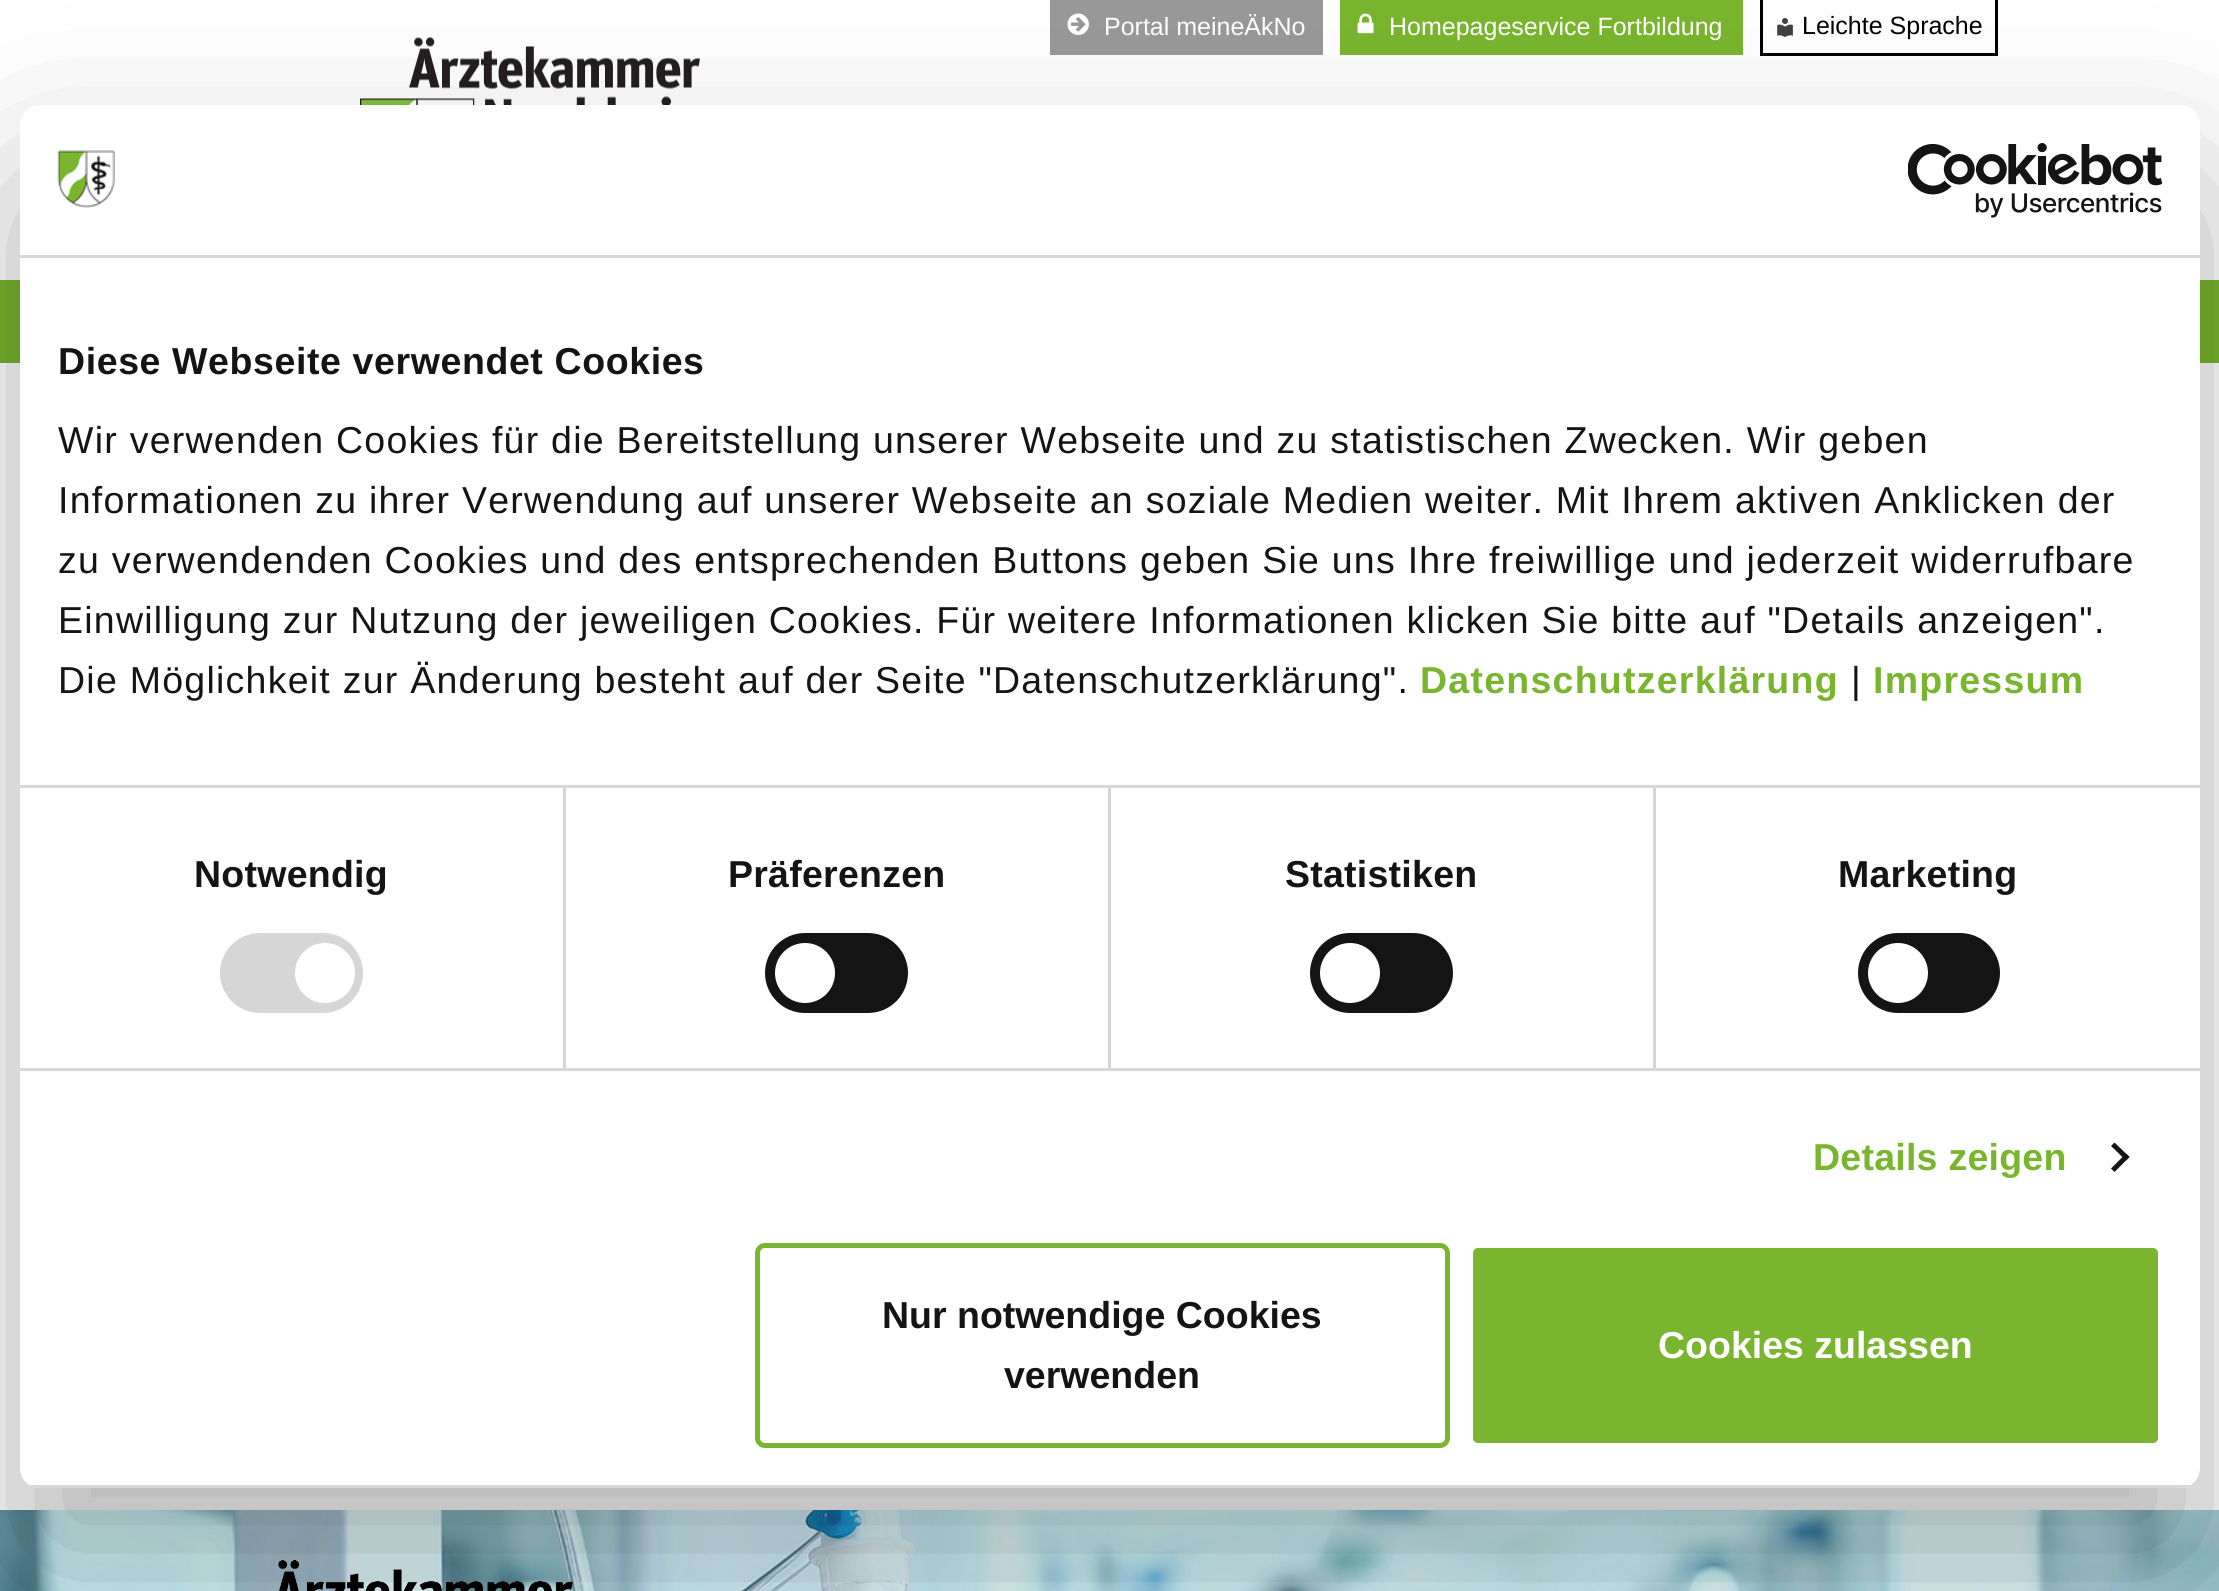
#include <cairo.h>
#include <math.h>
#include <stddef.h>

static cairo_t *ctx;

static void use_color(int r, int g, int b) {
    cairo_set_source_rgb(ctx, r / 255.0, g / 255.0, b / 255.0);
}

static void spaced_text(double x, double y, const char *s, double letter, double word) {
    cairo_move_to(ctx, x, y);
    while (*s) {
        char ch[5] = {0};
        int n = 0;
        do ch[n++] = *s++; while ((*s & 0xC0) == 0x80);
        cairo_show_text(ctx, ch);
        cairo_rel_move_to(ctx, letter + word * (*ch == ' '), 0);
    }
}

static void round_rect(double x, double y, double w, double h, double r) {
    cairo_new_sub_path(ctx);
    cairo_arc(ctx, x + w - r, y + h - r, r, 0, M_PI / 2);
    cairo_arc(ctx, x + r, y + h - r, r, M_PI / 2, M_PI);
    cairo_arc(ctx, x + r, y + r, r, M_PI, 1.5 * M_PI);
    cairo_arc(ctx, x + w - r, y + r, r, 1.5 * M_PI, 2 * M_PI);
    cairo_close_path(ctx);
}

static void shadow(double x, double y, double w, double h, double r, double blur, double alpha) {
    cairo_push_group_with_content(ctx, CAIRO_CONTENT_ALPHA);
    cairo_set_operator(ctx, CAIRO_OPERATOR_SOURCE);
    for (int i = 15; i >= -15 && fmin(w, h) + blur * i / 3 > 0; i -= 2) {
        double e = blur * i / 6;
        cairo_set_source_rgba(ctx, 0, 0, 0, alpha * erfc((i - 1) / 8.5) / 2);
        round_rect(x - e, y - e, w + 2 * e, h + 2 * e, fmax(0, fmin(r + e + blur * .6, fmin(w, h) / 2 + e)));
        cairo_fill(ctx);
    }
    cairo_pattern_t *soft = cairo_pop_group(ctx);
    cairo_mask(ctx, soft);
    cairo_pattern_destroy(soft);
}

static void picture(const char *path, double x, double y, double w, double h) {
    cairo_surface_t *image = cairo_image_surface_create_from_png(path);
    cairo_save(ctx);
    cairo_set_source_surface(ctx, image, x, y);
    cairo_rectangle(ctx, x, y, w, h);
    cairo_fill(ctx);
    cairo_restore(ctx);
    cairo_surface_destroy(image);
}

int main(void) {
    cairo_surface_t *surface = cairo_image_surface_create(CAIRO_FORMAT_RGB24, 2219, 1591);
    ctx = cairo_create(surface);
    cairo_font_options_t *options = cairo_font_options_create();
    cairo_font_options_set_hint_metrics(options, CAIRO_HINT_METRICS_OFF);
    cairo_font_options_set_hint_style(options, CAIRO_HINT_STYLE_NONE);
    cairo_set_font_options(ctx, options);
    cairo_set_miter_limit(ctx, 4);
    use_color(255, 255, 255);
    cairo_paint(ctx);
    use_color(153, 153, 153);
    cairo_rectangle(ctx, 1050, 0, 273, 55);
    cairo_fill(ctx);
    picture("img1.png", 1067, 13, 22, 22);
    cairo_select_font_face(ctx, "Liberation Sans", CAIRO_FONT_SLANT_NORMAL, CAIRO_FONT_WEIGHT_NORMAL);
    cairo_set_font_size(ctx, 25);
    use_color(255, 255, 255);
    cairo_move_to(ctx, 1104, 35);
    cairo_show_text(ctx, "Portal meineÄkNo");
    use_color(121, 181, 46);
    cairo_rectangle(ctx, 1340, 0, 403, 55);
    cairo_fill(ctx);
    picture("img2.png", 1357, 13, 17, 21);
    use_color(255, 255, 255);
    cairo_move_to(ctx, 1389, 35);
    cairo_show_text(ctx, "Homepageservice Fortbildung");
    use_color(0, 0, 0);
    cairo_rectangle(ctx, 1995, 0, 3, 55);
    cairo_fill(ctx);
    cairo_rectangle(ctx, 1760, 53, 238, 3);
    cairo_fill(ctx);
    cairo_rectangle(ctx, 1760, 0, 3, 55);
    cairo_fill(ctx);
    picture("img3.png", 1777, 18, 16, 20);
    cairo_move_to(ctx, 1802, 34);
    cairo_show_text(ctx, "Leichte Sprache");
    picture("img4.png", 360, 37, 340, 68);
    use_color(121, 181, 46);
    cairo_rectangle(ctx, 0, 280, 2219, 83);
    cairo_fill(ctx);
    picture("img7.png", 0, 1510, 2219, 81);
    picture("img8.png", 278, 1560, 295, 31);
    use_color(0, 0, 0);
    shadow(20, 185, 2180, 1383, 20, 85, 0.3);
    use_color(255, 255, 255);
    round_rect(20, 105, 2180, 1383, 20);
    cairo_fill(ctx);
    use_color(214, 214, 214);
    cairo_rectangle(ctx, 20, 255, 2180, 3);
    cairo_fill(ctx);
    picture("img5.png", 57, 150, 58, 58);
    picture("img6.png", 1908, 143, 255, 75);
    cairo_rectangle(ctx, 20, 785, 2180, 3);
    cairo_fill(ctx);
    cairo_select_font_face(ctx, "Liberation Sans", CAIRO_FONT_SLANT_NORMAL, CAIRO_FONT_WEIGHT_BOLD);
    cairo_set_font_size(ctx, 37.5);
    use_color(20, 20, 20);
    spaced_text(58, 374, "Diese Webseite verwendet Cookies", 0.6, 0);
    cairo_select_font_face(ctx, "Liberation Sans", CAIRO_FONT_SLANT_NORMAL, CAIRO_FONT_WEIGHT_NORMAL);
    spaced_text(58, 453, "Wir verwenden Cookies für die Bereitstellung unserer Webseite und zu statistischen Zwecken. Wir geben", 1.25, 0);
    spaced_text(58, 513, "Informationen zu ihrer Verwendung auf unserer Webseite an soziale Medien weiter. Mit Ihrem aktiven Anklicken der", 1.25, 0);
    spaced_text(58, 573, "zu verwendenden Cookies und des entsprechenden Buttons geben Sie uns Ihre freiwillige und jederzeit widerrufbare", 1.25, 0);
    spaced_text(58, 633, "Einwilligung zur Nutzung der jeweiligen Cookies. Für weitere Informationen klicken Sie bitte auf \"Details anzeigen\".", 1.25, 0);
    spaced_text(58, 693, "Die Möglichkeit zur Änderung besteht auf der Seite \"Datenschutzerklärung\".", 1.25, 0);
    cairo_select_font_face(ctx, "Liberation Sans", CAIRO_FONT_SLANT_NORMAL, CAIRO_FONT_WEIGHT_BOLD);
    use_color(121, 181, 46);
    spaced_text(1420, 693, "Datenschutzerklärung", 1.25, 0);
    cairo_select_font_face(ctx, "Liberation Sans", CAIRO_FONT_SLANT_NORMAL, CAIRO_FONT_WEIGHT_NORMAL);
    use_color(20, 20, 20);
    spaced_text(1851, 693, "|", 1.25, 0);
    cairo_select_font_face(ctx, "Liberation Sans", CAIRO_FONT_SLANT_NORMAL, CAIRO_FONT_WEIGHT_BOLD);
    use_color(121, 181, 46);
    spaced_text(1873, 693, "Impressum", 1.25, 0);
    use_color(214, 214, 214);
    cairo_rectangle(ctx, 20, 1068, 2180, 3);
    cairo_fill(ctx);
    cairo_rectangle(ctx, 563, 788, 3, 280);
    cairo_fill(ctx);
    use_color(20, 20, 20);
    spaced_text(194, 887, "Notwendig", 0.25, 0);
    use_color(214, 214, 214);
    round_rect(220, 933, 143, 80, 40);
    cairo_fill(ctx);
    use_color(255, 255, 255);
    cairo_arc(ctx, 325, 973, 30, 0, 2 * M_PI);
    cairo_fill(ctx);
    use_color(214, 214, 214);
    cairo_rectangle(ctx, 1108, 788, 3, 280);
    cairo_fill(ctx);
    use_color(20, 20, 20);
    spaced_text(728, 887, "Präferenzen", 0.25, 0);
    round_rect(765, 933, 143, 80, 40);
    cairo_fill(ctx);
    use_color(255, 255, 255);
    cairo_arc(ctx, 805, 973, 30, 0, 2 * M_PI);
    cairo_fill(ctx);
    use_color(214, 214, 214);
    cairo_rectangle(ctx, 1653, 788, 3, 280);
    cairo_fill(ctx);
    use_color(20, 20, 20);
    spaced_text(1285, 887, "Statistiken", 0.25, 0);
    round_rect(1310, 933, 143, 80, 40);
    cairo_fill(ctx);
    use_color(255, 255, 255);
    cairo_arc(ctx, 1350, 973, 30, 0, 2 * M_PI);
    cairo_fill(ctx);
    use_color(20, 20, 20);
    spaced_text(1838, 887, "Marketing", 0.25, 0);
    round_rect(1858, 933, 142, 80, 40);
    cairo_fill(ctx);
    use_color(255, 255, 255);
    cairo_arc(ctx, 1898, 973, 30, 0, 2 * M_PI);
    cairo_fill(ctx);
    use_color(121, 181, 46);
    spaced_text(1813, 1170, "Details zeigen", 0.25, 0);
    use_color(20, 20, 20);
    cairo_new_path(ctx);
    cairo_move_to(ctx, 2114.5, 1142.5);
    cairo_line_to(ctx, 2129.5, 1157);
    cairo_line_to(ctx, 2126, 1160.5);
    cairo_line_to(ctx, 2111, 1146);
    cairo_close_path(ctx);
    cairo_fill(ctx);
    cairo_new_path(ctx);
    cairo_move_to(ctx, 2126, 1153.5);
    cairo_line_to(ctx, 2129.5, 1157);
    cairo_line_to(ctx, 2114.5, 1172);
    cairo_line_to(ctx, 2111, 1168.5);
    cairo_close_path(ctx);
    cairo_fill(ctx);
    cairo_save(ctx);
    round_rect(20, 105, 2180, 1383, 20);
    cairo_clip(ctx);
    use_color(214, 214, 214);
    cairo_rectangle(ctx, 29, 1485, 2162, 3);
    cairo_fill(ctx);
    cairo_restore(ctx);
    round_rect(757.5, 1245.5, 690, 200, 7.5);
    use_color(121, 181, 46);
    cairo_set_line_width(ctx, 5);
    cairo_stroke(ctx);
    use_color(20, 20, 20);
    cairo_move_to(ctx, 882, 1328);
    cairo_show_text(ctx, "Nur notwendige Cookies");
    cairo_move_to(ctx, 1004, 1388);
    cairo_show_text(ctx, "verwenden");
    use_color(121, 181, 46);
    round_rect(1470.5, 1245.5, 690, 200, 7.5);
    cairo_fill_preserve(ctx);
    use_color(255, 255, 255);
    cairo_stroke(ctx);
    cairo_move_to(ctx, 1658, 1358);
    cairo_show_text(ctx, "Cookies zulassen");
    cairo_surface_write_to_png(surface, "result.png");
    cairo_font_options_destroy(options);
    cairo_destroy(ctx);
    cairo_surface_destroy(surface);
    return 0;
}
